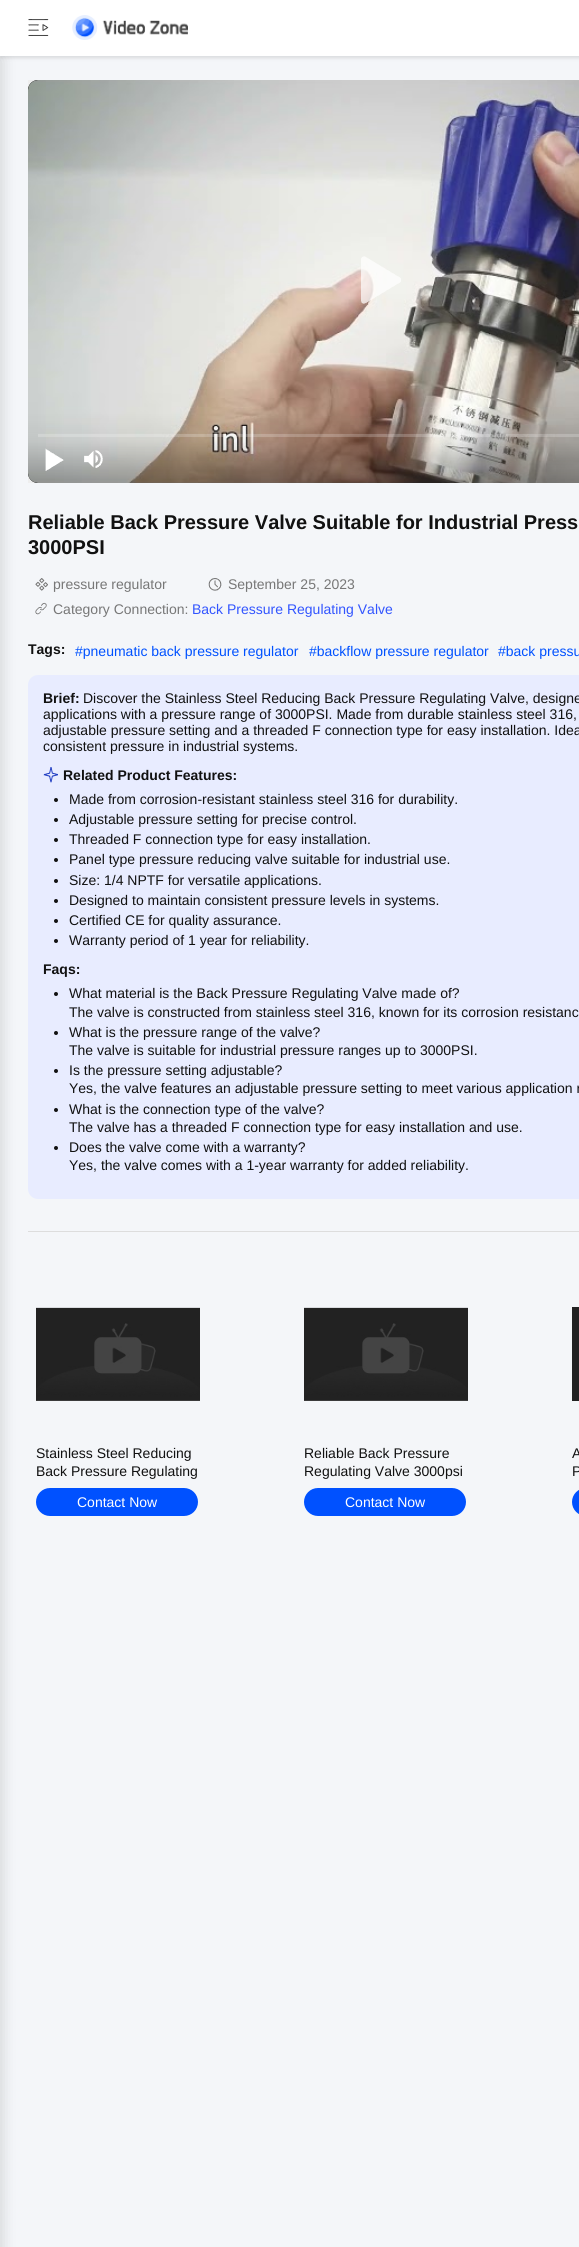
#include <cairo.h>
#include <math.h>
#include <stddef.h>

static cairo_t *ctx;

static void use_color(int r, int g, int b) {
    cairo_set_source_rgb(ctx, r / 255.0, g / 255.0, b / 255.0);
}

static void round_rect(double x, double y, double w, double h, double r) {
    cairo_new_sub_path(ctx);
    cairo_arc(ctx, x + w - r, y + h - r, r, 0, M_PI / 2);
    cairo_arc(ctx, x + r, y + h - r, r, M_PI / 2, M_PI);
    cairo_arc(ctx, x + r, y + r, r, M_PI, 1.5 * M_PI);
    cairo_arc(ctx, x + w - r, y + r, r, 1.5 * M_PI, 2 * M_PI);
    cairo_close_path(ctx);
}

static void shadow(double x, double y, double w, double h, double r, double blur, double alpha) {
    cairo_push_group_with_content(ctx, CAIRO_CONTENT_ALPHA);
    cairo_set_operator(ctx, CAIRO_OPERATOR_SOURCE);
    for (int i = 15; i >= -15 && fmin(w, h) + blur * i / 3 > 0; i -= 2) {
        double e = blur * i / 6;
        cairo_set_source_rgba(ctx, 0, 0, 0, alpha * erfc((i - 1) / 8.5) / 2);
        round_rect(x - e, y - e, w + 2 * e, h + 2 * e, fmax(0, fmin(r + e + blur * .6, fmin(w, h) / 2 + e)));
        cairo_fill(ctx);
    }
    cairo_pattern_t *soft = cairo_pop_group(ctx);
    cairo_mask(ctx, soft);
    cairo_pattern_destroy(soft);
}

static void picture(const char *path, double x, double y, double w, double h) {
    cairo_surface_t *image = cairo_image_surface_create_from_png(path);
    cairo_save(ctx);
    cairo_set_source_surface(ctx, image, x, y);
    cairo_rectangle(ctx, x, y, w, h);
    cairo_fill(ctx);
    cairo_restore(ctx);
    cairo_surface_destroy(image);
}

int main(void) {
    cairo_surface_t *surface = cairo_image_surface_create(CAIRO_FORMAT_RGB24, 579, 2247);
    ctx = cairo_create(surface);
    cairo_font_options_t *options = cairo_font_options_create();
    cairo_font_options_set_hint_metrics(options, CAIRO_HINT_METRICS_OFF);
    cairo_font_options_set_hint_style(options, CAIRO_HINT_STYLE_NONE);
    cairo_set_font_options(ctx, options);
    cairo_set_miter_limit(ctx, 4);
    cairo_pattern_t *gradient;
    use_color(244, 246, 249);
    cairo_paint(ctx);
    use_color(0, 0, 0);
    shadow(0, 2, 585, 56, 0, 2, 0.12);
    shadow(-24, 59, 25, 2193, 0, 8, 0.16);
    use_color(255, 255, 255);
    cairo_rectangle(ctx, 0, 0, 579, 56);
    cairo_fill(ctx);
    picture("img1.png", 28, 19, 21, 17);
    picture("img2.png", 72, 15, 116, 25);
    use_color(221, 221, 221);
    cairo_rectangle(ctx, 28, 1231, 551, 1);
    cairo_fill(ctx);
    use_color(238, 238, 238);
    cairo_rectangle(ctx, 28, 80, 10, 403);
    cairo_fill(ctx);
    use_color(0, 0, 0);
    round_rect(28, 80, 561, 403, 10);
    cairo_fill(ctx);
    picture("img3.png", 28, 80, 551, 403);
    picture("img4.png", 361, 256, 40, 48);
    gradient = cairo_pattern_create_linear(386, 483, 386, 413);
    cairo_pattern_add_color_stop_rgba(gradient, 0.05, 0.055, 0.055, 0.051, 0.3);
    cairo_pattern_add_color_stop_rgba(gradient, 0.6, 0.055, 0.055, 0.055, 0.05);
    cairo_pattern_add_color_stop_rgba(gradient, 1, 0.055, 0.055, 0.055, 0);
    cairo_set_source(ctx, gradient);
    cairo_pattern_destroy(gradient);
    cairo_new_path(ctx);
    cairo_move_to(ctx, 28, 413);
    cairo_line_to(ctx, 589, 413);
    cairo_line_to(ctx, 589, 473);
    cairo_curve_to(ctx, 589, 478.5, 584.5, 483, 579, 483);
    cairo_line_to(ctx, 38, 483);
    cairo_curve_to(ctx, 32.5, 483, 28, 478.5, 28, 473);
    cairo_close_path(ctx);
    cairo_fill(ctx);
    cairo_set_source_rgba(ctx, 1, 1, 1, 0.2);
    cairo_rectangle(ctx, 38, 434, 541, 3);
    cairo_fill(ctx);
    picture("img5.png", 45, 448, 19, 23);
    picture("img6.png", 84, 450, 19, 18);
    cairo_select_font_face(ctx, "Liberation Sans", CAIRO_FONT_SLANT_NORMAL, CAIRO_FONT_WEIGHT_BOLD);
    cairo_set_font_size(ctx, 20);
    use_color(17, 17, 17);
    cairo_move_to(ctx, 28, 529);
    cairo_show_text(ctx, "Reliable Back Pressure Valve Suitable for Industrial Press");
    cairo_move_to(ctx, 28, 554);
    cairo_show_text(ctx, "3000PSI");
    picture("img7.png", 35, 578, 13, 13);
    cairo_select_font_face(ctx, "Liberation Sans", CAIRO_FONT_SLANT_NORMAL, CAIRO_FONT_WEIGHT_NORMAL);
    cairo_set_font_size(ctx, 14);
    use_color(119, 119, 119);
    cairo_move_to(ctx, 53, 589);
    cairo_show_text(ctx, "pressure regulator");
    picture("img8.png", 208, 578, 14, 13);
    cairo_move_to(ctx, 228, 589);
    cairo_show_text(ctx, "September 25, 2023");
    picture("img9.png", 35, 602, 12, 13);
    cairo_move_to(ctx, 53, 614);
    cairo_show_text(ctx, "Category Connection:");
    use_color(50, 85, 255);
    cairo_move_to(ctx, 192, 614);
    cairo_show_text(ctx, "Back Pressure Regulating Valve");
    cairo_select_font_face(ctx, "Liberation Sans", CAIRO_FONT_SLANT_NORMAL, CAIRO_FONT_WEIGHT_BOLD);
    use_color(17, 17, 17);
    cairo_move_to(ctx, 28, 654);
    cairo_show_text(ctx, "Tags:");
    cairo_select_font_face(ctx, "Liberation Sans", CAIRO_FONT_SLANT_NORMAL, CAIRO_FONT_WEIGHT_NORMAL);
    use_color(0, 81, 255);
    cairo_move_to(ctx, 75, 656);
    cairo_show_text(ctx, "#pneumatic back pressure regulator");
    cairo_move_to(ctx, 309, 656);
    cairo_show_text(ctx, "#backflow pressure regulator");
    cairo_move_to(ctx, 498, 656);
    cairo_show_text(ctx, "#back pressu");
    use_color(232, 236, 255);
    round_rect(28, 675, 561, 524, 10);
    cairo_fill(ctx);
    cairo_select_font_face(ctx, "Liberation Sans", CAIRO_FONT_SLANT_NORMAL, CAIRO_FONT_WEIGHT_BOLD);
    use_color(17, 17, 17);
    cairo_move_to(ctx, 43, 703);
    cairo_show_text(ctx, "Brief:");
    cairo_select_font_face(ctx, "Liberation Sans", CAIRO_FONT_SLANT_NORMAL, CAIRO_FONT_WEIGHT_NORMAL);
    cairo_move_to(ctx, 83, 703);
    cairo_show_text(ctx, "Discover the Stainless Steel Reducing Back Pressure Regulating Valve, designe");
    cairo_move_to(ctx, 43, 719);
    cairo_show_text(ctx, "applications with a pressure range of 3000PSI. Made from durable stainless steel 316,");
    cairo_move_to(ctx, 43, 735);
    cairo_show_text(ctx, "adjustable pressure setting and a threaded F connection type for easy installation. Idea");
    cairo_move_to(ctx, 43, 751);
    cairo_show_text(ctx, "consistent pressure in industrial systems.");
    picture("img10.png", 43, 767, 15, 16);
    cairo_select_font_face(ctx, "Liberation Sans", CAIRO_FONT_SLANT_NORMAL, CAIRO_FONT_WEIGHT_BOLD);
    cairo_move_to(ctx, 63, 780);
    cairo_show_text(ctx, "Related Product Features:");
    cairo_new_path(ctx);
    cairo_arc(ctx, 56, 800, 2, 0, 2 * M_PI);
    cairo_fill(ctx);
    cairo_select_font_face(ctx, "Liberation Sans", CAIRO_FONT_SLANT_NORMAL, CAIRO_FONT_WEIGHT_NORMAL);
    cairo_move_to(ctx, 69, 804);
    cairo_show_text(ctx, "Made from corrosion-resistant stainless steel 316 for durability.");
    cairo_new_path(ctx);
    cairo_arc(ctx, 56, 820, 2, 0, 2 * M_PI);
    cairo_fill(ctx);
    cairo_move_to(ctx, 69, 824);
    cairo_show_text(ctx, "Adjustable pressure setting for precise control.");
    cairo_new_path(ctx);
    cairo_arc(ctx, 56, 840, 2, 0, 2 * M_PI);
    cairo_fill(ctx);
    cairo_move_to(ctx, 69, 844);
    cairo_show_text(ctx, "Threaded F connection type for easy installation.");
    cairo_new_path(ctx);
    cairo_arc(ctx, 56, 860, 2, 0, 2 * M_PI);
    cairo_fill(ctx);
    cairo_move_to(ctx, 69, 864);
    cairo_show_text(ctx, "Panel type pressure reducing valve suitable for industrial use.");
    cairo_new_path(ctx);
    cairo_arc(ctx, 56, 881, 2, 0, 2 * M_PI);
    cairo_fill(ctx);
    cairo_move_to(ctx, 69, 885);
    cairo_show_text(ctx, "Size: 1/4 NPTF for versatile applications.");
    cairo_new_path(ctx);
    cairo_arc(ctx, 56, 901, 2, 0, 2 * M_PI);
    cairo_fill(ctx);
    cairo_move_to(ctx, 69, 905);
    cairo_show_text(ctx, "Designed to maintain consistent pressure levels in systems.");
    cairo_new_path(ctx);
    cairo_arc(ctx, 56, 921, 2, 0, 2 * M_PI);
    cairo_fill(ctx);
    cairo_move_to(ctx, 69, 925);
    cairo_show_text(ctx, "Certified CE for quality assurance.");
    cairo_new_path(ctx);
    cairo_arc(ctx, 56, 941, 2, 0, 2 * M_PI);
    cairo_fill(ctx);
    cairo_move_to(ctx, 69, 945);
    cairo_show_text(ctx, "Warranty period of 1 year for reliability.");
    cairo_select_font_face(ctx, "Liberation Sans", CAIRO_FONT_SLANT_NORMAL, CAIRO_FONT_WEIGHT_BOLD);
    cairo_move_to(ctx, 43, 974);
    cairo_show_text(ctx, "Faqs:");
    cairo_new_path(ctx);
    cairo_arc(ctx, 56, 994, 2, 0, 2 * M_PI);
    cairo_fill(ctx);
    cairo_select_font_face(ctx, "Liberation Sans", CAIRO_FONT_SLANT_NORMAL, CAIRO_FONT_WEIGHT_NORMAL);
    cairo_move_to(ctx, 69, 998);
    cairo_show_text(ctx, "What material is the Back Pressure Regulating Valve made of?");
    cairo_move_to(ctx, 69, 1017);
    cairo_show_text(ctx, "The valve is constructed from stainless steel 316, known for its corrosion resistanc");
    cairo_new_path(ctx);
    cairo_arc(ctx, 56, 1033, 2, 0, 2 * M_PI);
    cairo_fill(ctx);
    cairo_move_to(ctx, 69, 1037);
    cairo_show_text(ctx, "What is the pressure range of the valve?");
    cairo_move_to(ctx, 69, 1055);
    cairo_show_text(ctx, "The valve is suitable for industrial pressure ranges up to 3000PSI.");
    cairo_new_path(ctx);
    cairo_arc(ctx, 56, 1071, 2, 0, 2 * M_PI);
    cairo_fill(ctx);
    cairo_move_to(ctx, 69, 1075);
    cairo_show_text(ctx, "Is the pressure setting adjustable?");
    cairo_move_to(ctx, 69, 1093);
    cairo_show_text(ctx, "Yes, the valve features an adjustable pressure setting to meet various application r");
    cairo_new_path(ctx);
    cairo_arc(ctx, 56, 1110, 2, 0, 2 * M_PI);
    cairo_fill(ctx);
    cairo_move_to(ctx, 69, 1114);
    cairo_show_text(ctx, "What is the connection type of the valve?");
    cairo_move_to(ctx, 69, 1132);
    cairo_show_text(ctx, "The valve has a threaded F connection type for easy installation and use.");
    cairo_new_path(ctx);
    cairo_arc(ctx, 56, 1148, 2, 0, 2 * M_PI);
    cairo_fill(ctx);
    cairo_move_to(ctx, 69, 1152);
    cairo_show_text(ctx, "Does the valve come with a warranty?");
    cairo_move_to(ctx, 69, 1170);
    cairo_show_text(ctx, "Yes, the valve comes with a 1-year warranty for added reliability.");
    picture("img11.png", 36, 1307, 164, 94);
    cairo_move_to(ctx, 36, 1458);
    cairo_show_text(ctx, "Stainless Steel Reducing");
    cairo_move_to(ctx, 36, 1476);
    cairo_show_text(ctx, "Back Pressure Regulating");
    use_color(0, 81, 255);
    round_rect(36, 1488, 162, 28, 14);
    cairo_fill(ctx);
    use_color(255, 255, 255);
    cairo_move_to(ctx, 77, 1507);
    cairo_show_text(ctx, "Contact Now");
    picture("img11.png", 304, 1307, 164, 94);
    use_color(17, 17, 17);
    cairo_move_to(ctx, 304, 1458);
    cairo_show_text(ctx, "Reliable Back Pressure");
    cairo_move_to(ctx, 304, 1476);
    cairo_show_text(ctx, "Regulating Valve 3000psi");
    use_color(0, 81, 255);
    round_rect(304, 1488, 162, 28, 14);
    cairo_fill(ctx);
    use_color(255, 255, 255);
    cairo_move_to(ctx, 345, 1507);
    cairo_show_text(ctx, "Contact Now");
    use_color(34, 34, 34);
    cairo_rectangle(ctx, 572, 1307, 7, 94);
    cairo_fill(ctx);
    use_color(17, 17, 17);
    cairo_move_to(ctx, 572, 1458);
    cairo_show_text(ctx, "A");
    cairo_move_to(ctx, 572, 1476);
    cairo_show_text(ctx, "P");
    use_color(0, 81, 255);
    round_rect(572, 1488, 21, 28, 14);
    cairo_fill(ctx);
    cairo_surface_write_to_png(surface, "result.png");
    cairo_font_options_destroy(options);
    cairo_destroy(ctx);
    cairo_surface_destroy(surface);
    return 0;
}
